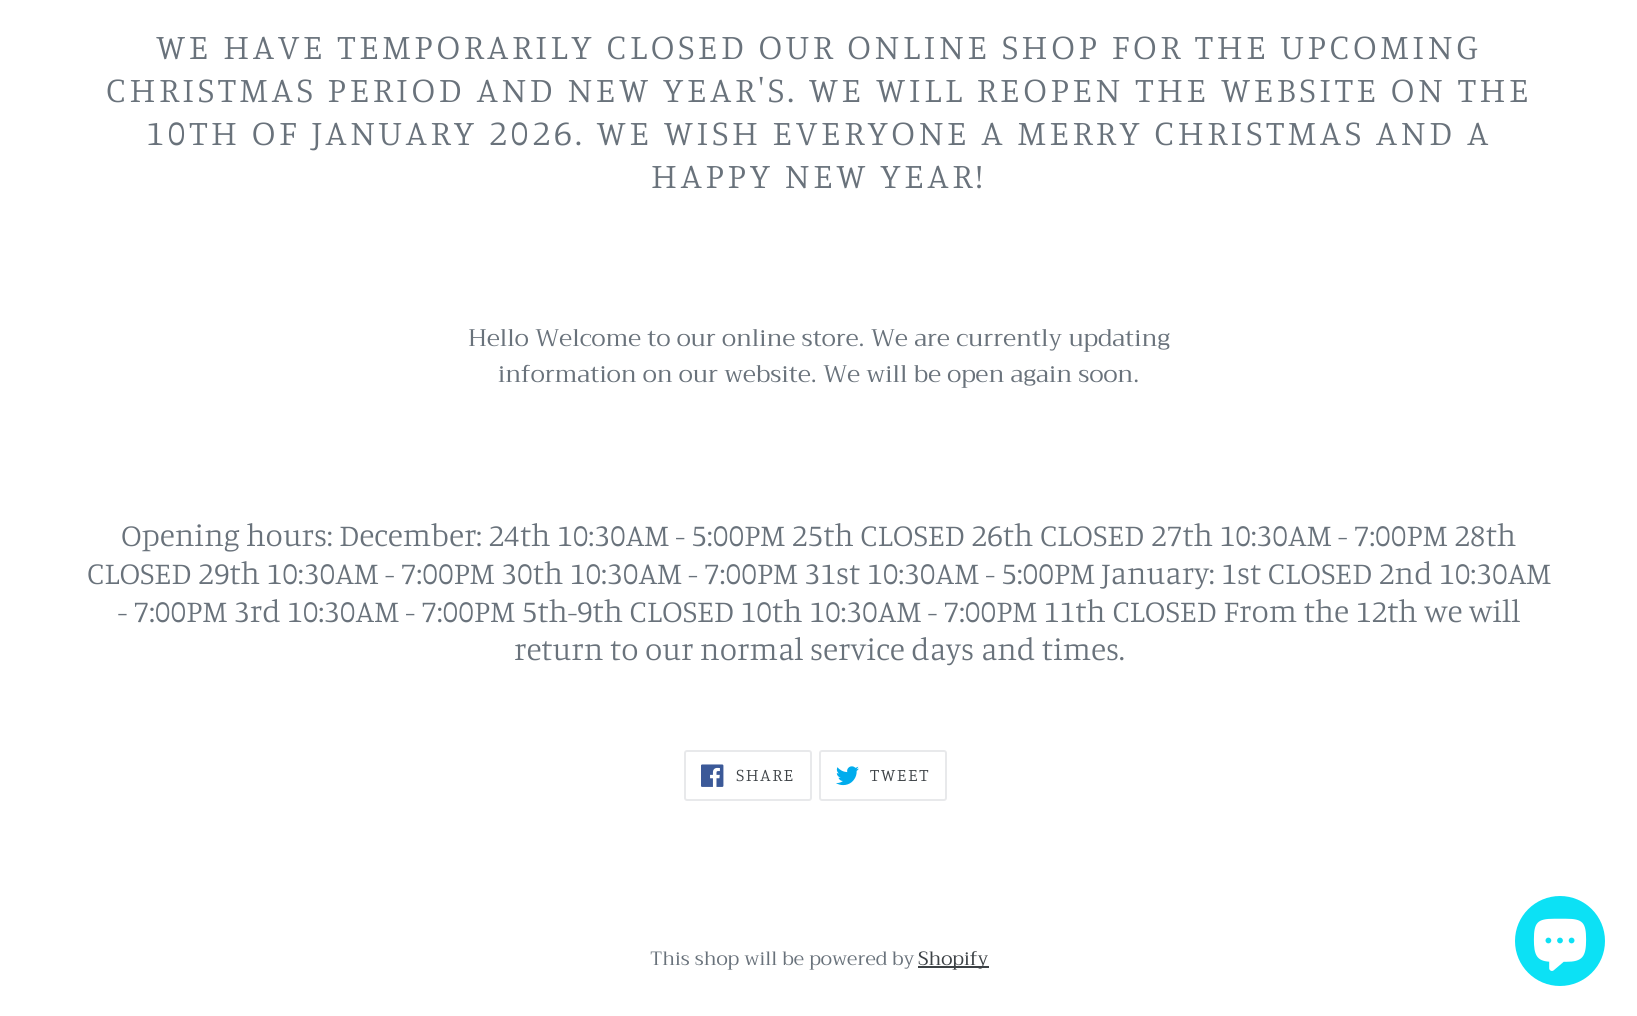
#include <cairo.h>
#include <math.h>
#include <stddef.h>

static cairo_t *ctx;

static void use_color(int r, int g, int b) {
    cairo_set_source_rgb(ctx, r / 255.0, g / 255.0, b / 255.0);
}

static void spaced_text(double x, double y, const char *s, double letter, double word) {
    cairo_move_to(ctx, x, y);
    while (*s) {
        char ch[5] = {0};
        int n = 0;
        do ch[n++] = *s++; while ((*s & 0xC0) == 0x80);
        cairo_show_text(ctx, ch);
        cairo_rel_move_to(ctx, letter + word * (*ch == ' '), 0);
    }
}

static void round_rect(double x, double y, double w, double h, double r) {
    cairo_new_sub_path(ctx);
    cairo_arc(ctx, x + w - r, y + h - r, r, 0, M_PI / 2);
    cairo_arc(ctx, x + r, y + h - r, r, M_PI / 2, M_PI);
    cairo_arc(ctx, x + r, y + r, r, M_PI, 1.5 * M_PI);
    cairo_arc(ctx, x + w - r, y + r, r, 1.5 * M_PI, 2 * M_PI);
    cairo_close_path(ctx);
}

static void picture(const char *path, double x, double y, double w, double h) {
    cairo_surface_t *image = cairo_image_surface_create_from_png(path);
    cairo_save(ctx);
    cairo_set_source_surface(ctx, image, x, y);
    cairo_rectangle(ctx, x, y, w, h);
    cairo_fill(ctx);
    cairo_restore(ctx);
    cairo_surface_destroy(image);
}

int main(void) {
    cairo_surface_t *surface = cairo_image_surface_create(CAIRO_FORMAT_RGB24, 1637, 1016);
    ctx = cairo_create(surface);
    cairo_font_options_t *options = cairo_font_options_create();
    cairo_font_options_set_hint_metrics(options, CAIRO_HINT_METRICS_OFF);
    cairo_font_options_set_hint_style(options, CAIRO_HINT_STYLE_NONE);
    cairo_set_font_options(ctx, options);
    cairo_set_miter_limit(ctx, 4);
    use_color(255, 255, 255);
    cairo_paint(ctx);
    cairo_select_font_face(ctx, "Manuale Light", CAIRO_FONT_SLANT_NORMAL, CAIRO_FONT_WEIGHT_NORMAL);
    cairo_set_font_size(ctx, 36);
    use_color(105, 114, 123);
    spaced_text(156, 59, "WE HAVE TEMPORARILY CLOSED OUR ONLINE SHOP FOR THE UPCOMING", 3.6, 0);
    spaced_text(106, 102, "CHRISTMAS PERIOD AND NEW YEAR'S. WE WILL REOPEN THE WEBSITE ON THE", 3.6, 0);
    spaced_text(146, 145, "10TH OF JANUARY 2026. WE WISH EVERYONE A MERRY CHRISTMAS AND A", 3.6, 0);
    spaced_text(651, 188, "HAPPY NEW YEAR!", 3.6, 0);
    cairo_select_font_face(ctx, "Trirong", CAIRO_FONT_SLANT_NORMAL, CAIRO_FONT_WEIGHT_NORMAL);
    cairo_set_font_size(ctx, 24);
    cairo_move_to(ctx, 468, 346);
    cairo_show_text(ctx, "Hello Welcome to our online store. We are currently updating");
    cairo_move_to(ctx, 498, 382);
    cairo_show_text(ctx, "information on our website. We will be open again soon.");
    cairo_select_font_face(ctx, "Manuale Light", CAIRO_FONT_SLANT_NORMAL, CAIRO_FONT_WEIGHT_NORMAL);
    cairo_set_font_size(ctx, 31.5);
    cairo_move_to(ctx, 121, 546);
    cairo_show_text(ctx, "Opening hours: December: 24th 10:30AM - 5:00PM 25th CLOSED 26th CLOSED 27th 10:30AM - 7:00PM 28th");
    cairo_move_to(ctx, 87, 584);
    cairo_show_text(ctx, "CLOSED 29th 10:30AM - 7:00PM 30th 10:30AM - 7:00PM 31st 10:30AM - 5:00PM January: 1st CLOSED 2nd 10:30AM");
    cairo_move_to(ctx, 118, 622);
    cairo_show_text(ctx, "- 7:00PM 3rd 10:30AM - 7:00PM 5th-9th CLOSED 10th 10:30AM - 7:00PM 11th CLOSED From the 12th we will");
    cairo_move_to(ctx, 514, 660);
    cairo_show_text(ctx, "return to our normal service days and times.");
    round_rect(685, 751, 126, 49, 2);
    use_color(232, 233, 235);
    cairo_stroke(ctx);
    picture("img1.png", 701, 764, 23, 23);
    cairo_set_font_size(ctx, 18);
    use_color(61, 66, 70);
    spaced_text(736, 781, "SHARE", 1.5, 0);
    round_rect(820, 751, 126, 49, 2);
    use_color(232, 233, 235);
    cairo_stroke(ctx);
    picture("img2.png", 836, 766, 23, 20);
    use_color(61, 66, 70);
    spaced_text(870, 781, "TWEET", 1.5, 0);
    cairo_select_font_face(ctx, "Trirong", CAIRO_FONT_SLANT_NORMAL, CAIRO_FONT_WEIGHT_NORMAL);
    cairo_set_font_size(ctx, 19.25);
    use_color(105, 114, 123);
    cairo_move_to(ctx, 650, 965);
    cairo_show_text(ctx, "This shop will be powered by");
    use_color(61, 66, 70);
    cairo_rectangle(ctx, 918, 966, 71, 2);
    cairo_fill(ctx);
    cairo_move_to(ctx, 918, 965);
    cairo_show_text(ctx, "Shopify");
    use_color(12, 225, 245);
    cairo_new_path(ctx);
    cairo_arc(ctx, 1560, 941, 45, 0, 2 * M_PI);
    cairo_fill(ctx);
    picture("img3.png", 1533, 918, 54, 53);
    cairo_surface_write_to_png(surface, "result.png");
    cairo_font_options_destroy(options);
    cairo_destroy(ctx);
    cairo_surface_destroy(surface);
    return 0;
}
